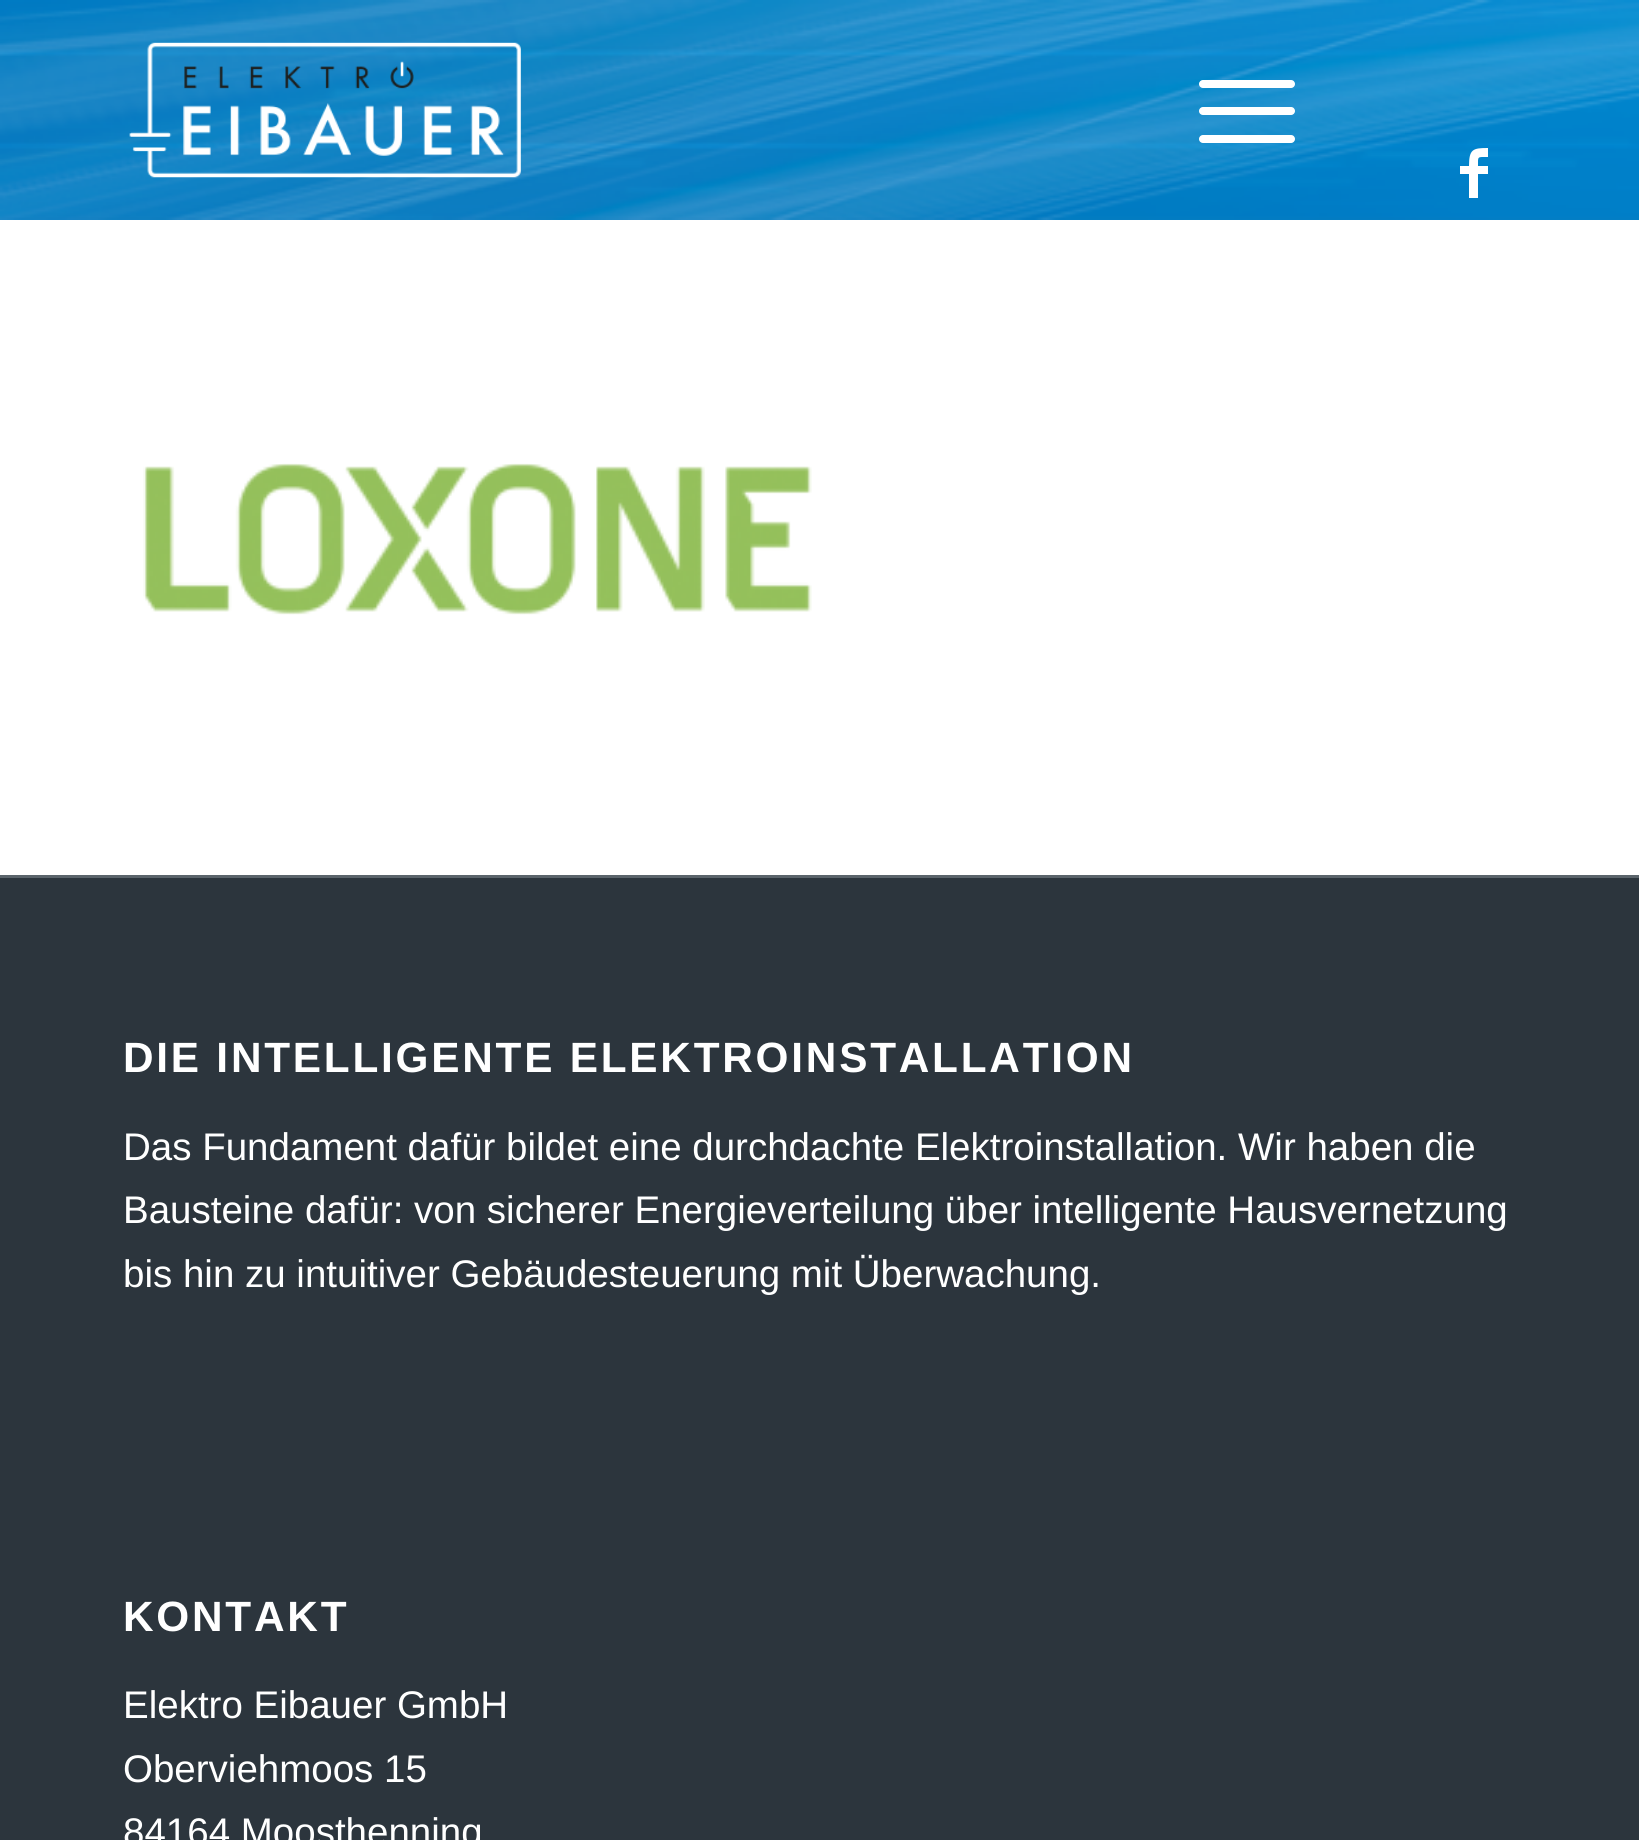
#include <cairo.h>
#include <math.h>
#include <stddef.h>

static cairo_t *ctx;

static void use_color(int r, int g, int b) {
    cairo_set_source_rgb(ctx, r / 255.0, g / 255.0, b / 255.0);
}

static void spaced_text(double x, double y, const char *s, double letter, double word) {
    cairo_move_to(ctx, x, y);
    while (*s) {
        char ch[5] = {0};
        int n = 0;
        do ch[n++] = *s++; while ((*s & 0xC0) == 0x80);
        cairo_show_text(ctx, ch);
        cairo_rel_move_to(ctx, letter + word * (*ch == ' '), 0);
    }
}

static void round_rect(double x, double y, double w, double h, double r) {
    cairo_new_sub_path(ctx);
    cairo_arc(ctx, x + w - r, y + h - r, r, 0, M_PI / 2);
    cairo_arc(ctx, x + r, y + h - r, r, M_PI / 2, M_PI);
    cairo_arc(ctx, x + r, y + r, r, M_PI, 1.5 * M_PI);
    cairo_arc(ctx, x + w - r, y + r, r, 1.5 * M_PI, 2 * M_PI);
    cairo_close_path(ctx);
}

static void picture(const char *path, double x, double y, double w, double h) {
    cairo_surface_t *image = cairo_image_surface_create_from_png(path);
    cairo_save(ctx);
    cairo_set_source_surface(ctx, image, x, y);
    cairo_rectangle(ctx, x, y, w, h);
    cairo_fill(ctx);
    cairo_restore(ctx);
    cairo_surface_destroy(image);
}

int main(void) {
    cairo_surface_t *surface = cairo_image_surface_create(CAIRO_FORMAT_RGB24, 1639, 1840);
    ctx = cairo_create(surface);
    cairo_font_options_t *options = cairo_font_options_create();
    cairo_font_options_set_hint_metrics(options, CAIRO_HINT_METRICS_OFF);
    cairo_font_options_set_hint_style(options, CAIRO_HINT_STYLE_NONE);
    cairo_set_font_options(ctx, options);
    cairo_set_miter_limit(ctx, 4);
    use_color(255, 255, 255);
    cairo_paint(ctx);
    picture("img1.png", 0, 0, 1639, 220);
    picture("img2.png", 129, 42, 392, 136);
    use_color(255, 255, 255);
    round_rect(1199, 107, 96, 8, 4);
    cairo_fill(ctx);
    round_rect(1199, 80, 96, 8, 4);
    cairo_fill(ctx);
    round_rect(1199, 135, 96, 8, 4);
    cairo_fill(ctx);
    cairo_new_path(ctx);
    cairo_move_to(ctx, 1488, 157);
    cairo_curve_to(ctx, 1477, 157, 1478, 156, 1478, 166);
    cairo_line_to(ctx, 1488, 166);
    cairo_line_to(ctx, 1488, 174);
    cairo_line_to(ctx, 1478, 174);
    cairo_line_to(ctx, 1478, 198);
    cairo_line_to(ctx, 1469, 198);
    cairo_line_to(ctx, 1469, 174);
    cairo_line_to(ctx, 1460, 174);
    cairo_line_to(ctx, 1460, 166);
    cairo_line_to(ctx, 1469, 166);
    cairo_curve_to(ctx, 1469, 149, 1473, 148, 1488, 148);
    cairo_close_path(ctx);
    cairo_fill(ctx);
    picture("img3.png", 143, 463, 669, 152);
    use_color(44, 53, 61);
    cairo_rectangle(ctx, 0, 878, 1639, 962);
    cairo_fill(ctx);
    use_color(91, 100, 107);
    cairo_rectangle(ctx, 0, 875, 1639, 3);
    cairo_fill(ctx);
    cairo_select_font_face(ctx, "Liberation Sans", CAIRO_FONT_SLANT_NORMAL, CAIRO_FONT_WEIGHT_BOLD);
    cairo_set_font_size(ctx, 42.35);
    use_color(255, 255, 255);
    spaced_text(123, 1072, "DIE INTELLIGENTE ELEKTROINSTALLATION", 2.75, 0);
    cairo_select_font_face(ctx, "Liberation Sans", CAIRO_FONT_SLANT_NORMAL, CAIRO_FONT_WEIGHT_NORMAL);
    cairo_set_font_size(ctx, 38.5);
    cairo_move_to(ctx, 123, 1160);
    cairo_show_text(ctx, "Das Fundament dafür bildet eine durchdachte Elektroinstallation. Wir haben die");
    cairo_move_to(ctx, 123, 1223);
    cairo_show_text(ctx, "Bausteine dafür: von sicherer Energieverteilung über intelligente Hausvernetzung");
    cairo_move_to(ctx, 123, 1287);
    cairo_show_text(ctx, "bis hin zu intuitiver Gebäudesteuerung mit Überwachung.");
    cairo_select_font_face(ctx, "Liberation Sans", CAIRO_FONT_SLANT_NORMAL, CAIRO_FONT_WEIGHT_BOLD);
    cairo_set_font_size(ctx, 42.35);
    spaced_text(123, 1631, "KONTAKT", 2.75, 0);
    cairo_select_font_face(ctx, "Liberation Sans", CAIRO_FONT_SLANT_NORMAL, CAIRO_FONT_WEIGHT_NORMAL);
    cairo_set_font_size(ctx, 38.5);
    cairo_move_to(ctx, 123, 1718);
    cairo_show_text(ctx, "Elektro Eibauer GmbH");
    cairo_move_to(ctx, 123, 1782);
    cairo_show_text(ctx, "Oberviehmoos 15");
    cairo_move_to(ctx, 123, 1845);
    cairo_show_text(ctx, "84164 Moosthenning");
    cairo_surface_write_to_png(surface, "result.png");
    cairo_font_options_destroy(options);
    cairo_destroy(ctx);
    cairo_surface_destroy(surface);
    return 0;
}
